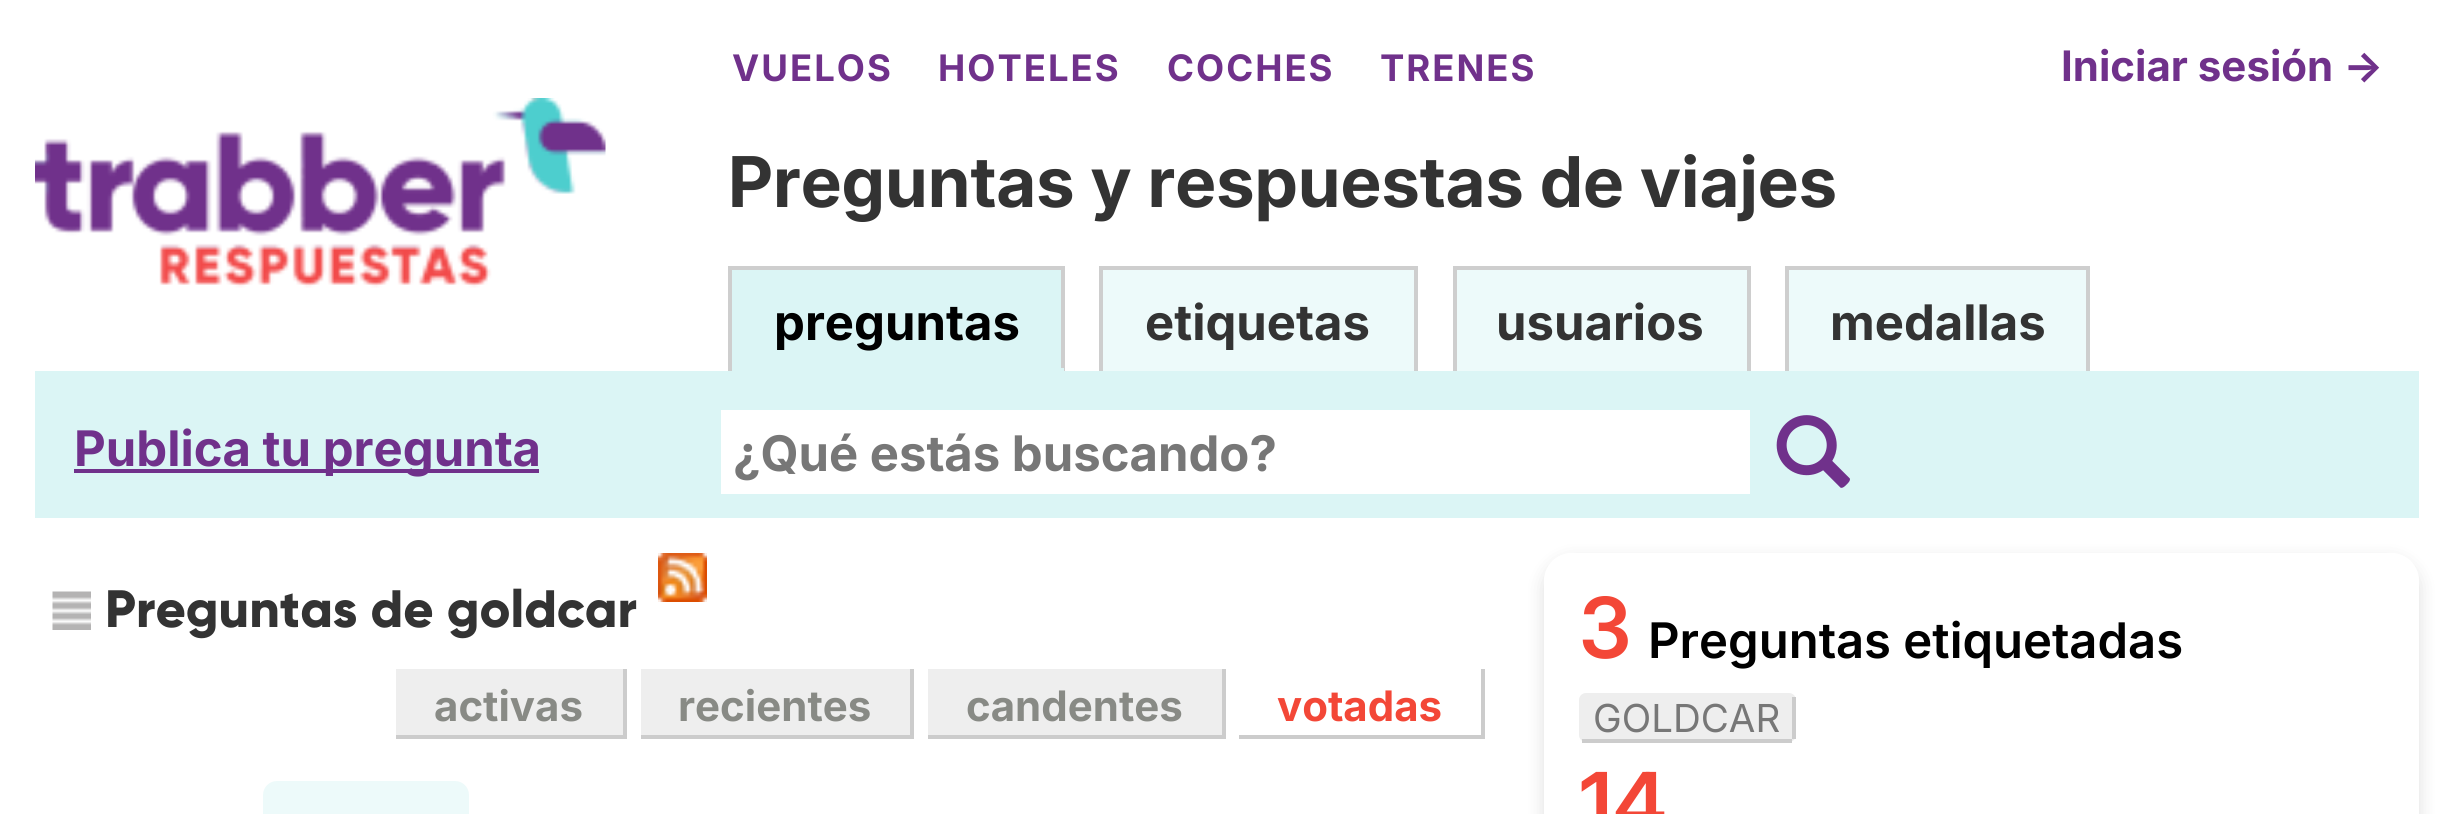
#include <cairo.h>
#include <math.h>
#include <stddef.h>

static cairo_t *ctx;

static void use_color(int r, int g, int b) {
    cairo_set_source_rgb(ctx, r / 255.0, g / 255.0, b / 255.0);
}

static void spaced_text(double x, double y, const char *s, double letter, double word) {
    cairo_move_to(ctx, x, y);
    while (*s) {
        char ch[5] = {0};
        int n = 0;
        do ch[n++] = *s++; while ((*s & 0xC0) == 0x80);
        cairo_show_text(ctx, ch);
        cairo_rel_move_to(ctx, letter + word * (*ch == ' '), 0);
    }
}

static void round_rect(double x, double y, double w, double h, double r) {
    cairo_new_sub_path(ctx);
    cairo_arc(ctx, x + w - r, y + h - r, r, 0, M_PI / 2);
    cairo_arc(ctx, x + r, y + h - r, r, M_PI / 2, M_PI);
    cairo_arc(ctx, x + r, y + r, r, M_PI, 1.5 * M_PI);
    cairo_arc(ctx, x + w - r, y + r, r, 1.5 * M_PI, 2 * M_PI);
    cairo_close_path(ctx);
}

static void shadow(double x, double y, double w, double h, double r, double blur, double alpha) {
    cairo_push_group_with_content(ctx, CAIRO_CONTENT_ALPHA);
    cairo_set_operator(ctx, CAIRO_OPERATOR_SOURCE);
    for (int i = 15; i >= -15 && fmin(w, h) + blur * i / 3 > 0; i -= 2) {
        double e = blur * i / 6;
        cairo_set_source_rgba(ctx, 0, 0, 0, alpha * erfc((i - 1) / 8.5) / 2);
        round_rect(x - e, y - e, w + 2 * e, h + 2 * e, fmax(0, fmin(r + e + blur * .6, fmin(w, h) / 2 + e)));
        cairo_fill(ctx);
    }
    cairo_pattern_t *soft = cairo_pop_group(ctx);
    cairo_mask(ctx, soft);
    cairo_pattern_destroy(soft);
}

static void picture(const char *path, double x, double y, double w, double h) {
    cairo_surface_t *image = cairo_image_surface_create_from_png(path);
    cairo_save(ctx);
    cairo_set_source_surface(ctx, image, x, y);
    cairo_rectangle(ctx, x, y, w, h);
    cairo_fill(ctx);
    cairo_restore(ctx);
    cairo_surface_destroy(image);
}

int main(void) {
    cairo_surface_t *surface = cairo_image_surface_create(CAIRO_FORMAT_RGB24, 2452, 814);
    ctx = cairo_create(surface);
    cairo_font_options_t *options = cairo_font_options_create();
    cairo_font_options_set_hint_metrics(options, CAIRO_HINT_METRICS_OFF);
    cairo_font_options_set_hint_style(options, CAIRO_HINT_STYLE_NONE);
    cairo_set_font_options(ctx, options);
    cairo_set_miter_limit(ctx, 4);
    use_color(255, 255, 255);
    cairo_paint(ctx);
    cairo_select_font_face(ctx, "Inter", CAIRO_FONT_SLANT_NORMAL, CAIRO_FONT_WEIGHT_BOLD);
    cairo_set_font_size(ctx, 36.5);
    use_color(112, 49, 139);
    spaced_text(732, 81, "VUELOS", 2, 0);
    spaced_text(938, 81, "HOTELES", 2, 0);
    spaced_text(1167, 81, "COCHES", 2, 0);
    spaced_text(1380, 81, "TRENES", 2, 0);
    cairo_set_font_size(ctx, 42);
    cairo_move_to(ctx, 2061, 81);
    cairo_show_text(ctx, "Iniciar sesión →");
    picture("img1.png", 35, 98, 571, 190);
    cairo_select_font_face(ctx, "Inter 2", CAIRO_FONT_SLANT_NORMAL, CAIRO_FONT_WEIGHT_BOLD);
    cairo_set_font_size(ctx, 70);
    use_color(51, 51, 51);
    cairo_move_to(ctx, 728, 207);
    cairo_show_text(ctx, "Preguntas y respuestas de viajes");
    use_color(219, 245, 245);
    cairo_rectangle(ctx, 732, 270, 329, 98);
    cairo_fill(ctx);
    use_color(206, 206, 206);
    cairo_rectangle(ctx, 728, 266, 336, 4);
    cairo_fill(ctx);
    cairo_rectangle(ctx, 1061, 266, 4, 105);
    cairo_fill(ctx);
    use_color(219, 245, 245);
    cairo_rectangle(ctx, 728, 368, 336, 3);
    cairo_fill(ctx);
    use_color(206, 206, 206);
    cairo_rectangle(ctx, 728, 266, 4, 105);
    cairo_fill(ctx);
    cairo_select_font_face(ctx, "Inter", CAIRO_FONT_SLANT_NORMAL, CAIRO_FONT_WEIGHT_BOLD);
    cairo_set_font_size(ctx, 49);
    use_color(0, 0, 0);
    cairo_move_to(ctx, 774, 340);
    cairo_show_text(ctx, "preguntas");
    use_color(237, 250, 250);
    cairo_rectangle(ctx, 1103, 270, 311, 101);
    cairo_fill(ctx);
    use_color(206, 206, 206);
    cairo_rectangle(ctx, 1099, 266, 319, 4);
    cairo_fill(ctx);
    cairo_rectangle(ctx, 1414, 266, 4, 105);
    cairo_fill(ctx);
    cairo_rectangle(ctx, 1099, 266, 4, 105);
    cairo_fill(ctx);
    use_color(51, 51, 51);
    cairo_move_to(ctx, 1145, 340);
    cairo_show_text(ctx, "etiquetas");
    use_color(237, 250, 250);
    cairo_rectangle(ctx, 1457, 270, 290, 101);
    cairo_fill(ctx);
    use_color(206, 206, 206);
    cairo_rectangle(ctx, 1453, 266, 297, 4);
    cairo_fill(ctx);
    cairo_rectangle(ctx, 1747, 266, 4, 105);
    cairo_fill(ctx);
    cairo_rectangle(ctx, 1453, 266, 4, 105);
    cairo_fill(ctx);
    use_color(51, 51, 51);
    cairo_move_to(ctx, 1496, 340);
    cairo_show_text(ctx, "usuarios");
    use_color(237, 250, 250);
    cairo_rectangle(ctx, 1789, 270, 297, 101);
    cairo_fill(ctx);
    use_color(206, 206, 206);
    cairo_rectangle(ctx, 1785, 266, 305, 4);
    cairo_fill(ctx);
    cairo_rectangle(ctx, 2086, 266, 4, 105);
    cairo_fill(ctx);
    cairo_rectangle(ctx, 1785, 266, 4, 105);
    cairo_fill(ctx);
    use_color(51, 51, 51);
    cairo_move_to(ctx, 1830, 340);
    cairo_show_text(ctx, "medallas");
    use_color(219, 245, 245);
    cairo_rectangle(ctx, 35, 371, 2384, 147);
    cairo_fill(ctx);
    use_color(112, 49, 139);
    cairo_rectangle(ctx, 74, 469, 465, 4);
    cairo_fill(ctx);
    cairo_move_to(ctx, 74, 466);
    cairo_show_text(ctx, "Publica tu pregunta");
    use_color(255, 255, 255);
    cairo_rectangle(ctx, 721, 410, 1029, 84);
    cairo_fill(ctx);
    use_color(119, 119, 119);
    cairo_move_to(ctx, 733, 471);
    cairo_show_text(ctx, "¿Qué estás buscando?");
    picture("img2.png", 1776, 415, 74, 73);
    picture("img3.png", 658, 553, 49, 49);
    picture("img4.png", 52, 591, 39, 39);
    cairo_select_font_face(ctx, "Gilroy ExtraBold", CAIRO_FONT_SLANT_NORMAL, CAIRO_FONT_WEIGHT_NORMAL);
    cairo_set_font_size(ctx, 52.5);
    use_color(51, 51, 51);
    cairo_move_to(ctx, 105, 627);
    cairo_show_text(ctx, "Preguntas de goldcar");
    use_color(238, 238, 238);
    cairo_rectangle(ctx, 396, 669, 227, 66);
    cairo_fill(ctx);
    use_color(204, 204, 204);
    cairo_rectangle(ctx, 623, 669, 4, 70);
    cairo_fill(ctx);
    cairo_rectangle(ctx, 396, 735, 231, 4);
    cairo_fill(ctx);
    cairo_select_font_face(ctx, "Inter", CAIRO_FONT_SLANT_NORMAL, CAIRO_FONT_WEIGHT_BOLD);
    cairo_set_font_size(ctx, 42);
    use_color(136, 138, 133);
    cairo_move_to(ctx, 434, 721);
    cairo_show_text(ctx, "activas");
    use_color(238, 238, 238);
    cairo_rectangle(ctx, 641, 669, 269, 66);
    cairo_fill(ctx);
    use_color(204, 204, 204);
    cairo_rectangle(ctx, 910, 669, 4, 70);
    cairo_fill(ctx);
    cairo_rectangle(ctx, 641, 735, 273, 4);
    cairo_fill(ctx);
    use_color(136, 138, 133);
    cairo_move_to(ctx, 678, 721);
    cairo_show_text(ctx, "recientes");
    use_color(238, 238, 238);
    cairo_rectangle(ctx, 928, 669, 294, 66);
    cairo_fill(ctx);
    use_color(204, 204, 204);
    cairo_rectangle(ctx, 1222, 669, 4, 70);
    cairo_fill(ctx);
    cairo_rectangle(ctx, 928, 735, 297, 4);
    cairo_fill(ctx);
    use_color(136, 138, 133);
    cairo_move_to(ctx, 966, 721);
    cairo_show_text(ctx, "candentes");
    use_color(204, 204, 204);
    cairo_rectangle(ctx, 1481, 669, 4, 70);
    cairo_fill(ctx);
    cairo_rectangle(ctx, 1239, 735, 245, 4);
    cairo_fill(ctx);
    use_color(243, 71, 55);
    cairo_move_to(ctx, 1277, 721);
    cairo_show_text(ctx, "votadas");
    use_color(237, 250, 250);
    round_rect(263, 781, 206, 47, 14);
    cairo_fill(ctx);
    cairo_save(ctx);
    cairo_set_fill_rule(ctx, CAIRO_FILL_RULE_EVEN_ODD);
    cairo_new_path(ctx);
    cairo_move_to(ctx, 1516, 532);
    cairo_line_to(ctx, 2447, 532);
    cairo_line_to(ctx, 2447, 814);
    cairo_line_to(ctx, 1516, 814);
    cairo_close_path(ctx);
    cairo_move_to(ctx, 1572, 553);
    cairo_line_to(ctx, 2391, 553);
    cairo_curve_to(ctx, 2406.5, 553, 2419, 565.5, 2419, 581);
    cairo_line_to(ctx, 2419, 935);
    cairo_curve_to(ctx, 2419, 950.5, 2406.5, 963, 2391, 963);
    cairo_line_to(ctx, 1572, 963);
    cairo_curve_to(ctx, 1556.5, 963, 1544, 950.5, 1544, 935);
    cairo_line_to(ctx, 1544, 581);
    cairo_curve_to(ctx, 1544, 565.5, 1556.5, 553, 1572, 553);
    cairo_close_path(ctx);
    cairo_clip(ctx);
    use_color(0, 0, 0);
    shadow(1544, 560, 875, 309, 28, 9, 0.13);
    cairo_restore(ctx);
    cairo_select_font_face(ctx, "Inter SemiBold", CAIRO_FONT_SLANT_NORMAL, CAIRO_FONT_WEIGHT_NORMAL);
    cairo_set_font_size(ctx, 84);
    use_color(243, 71, 55);
    cairo_move_to(ctx, 1579, 658);
    cairo_show_text(ctx, "3");
    cairo_select_font_face(ctx, "Inter 2 SemiBold", CAIRO_FONT_SLANT_NORMAL, CAIRO_FONT_WEIGHT_NORMAL);
    cairo_set_font_size(ctx, 49);
    use_color(0, 0, 0);
    cairo_move_to(ctx, 1648, 658);
    cairo_show_text(ctx, "Preguntas etiquetadas");
    use_color(238, 238, 238);
    round_rect(1579, 693, 217, 49, 7);
    cairo_fill(ctx);
    use_color(204, 204, 204);
    cairo_rectangle(ctx, 1792, 697, 4, 42);
    cairo_fill(ctx);
    cairo_rectangle(ctx, 1582, 739, 210, 4);
    cairo_fill(ctx);
    cairo_select_font_face(ctx, "Inter", CAIRO_FONT_SLANT_NORMAL, CAIRO_FONT_WEIGHT_NORMAL);
    cairo_set_font_size(ctx, 38.5);
    use_color(119, 119, 119);
    cairo_move_to(ctx, 1593, 732);
    cairo_show_text(ctx, "GOLDCAR");
    cairo_select_font_face(ctx, "Inter SemiBold", CAIRO_FONT_SLANT_NORMAL, CAIRO_FONT_WEIGHT_NORMAL);
    cairo_set_font_size(ctx, 84);
    use_color(243, 71, 55);
    cairo_move_to(ctx, 1579, 833);
    cairo_show_text(ctx, "14");
    cairo_surface_write_to_png(surface, "result.png");
    cairo_font_options_destroy(options);
    cairo_destroy(ctx);
    cairo_surface_destroy(surface);
    return 0;
}
